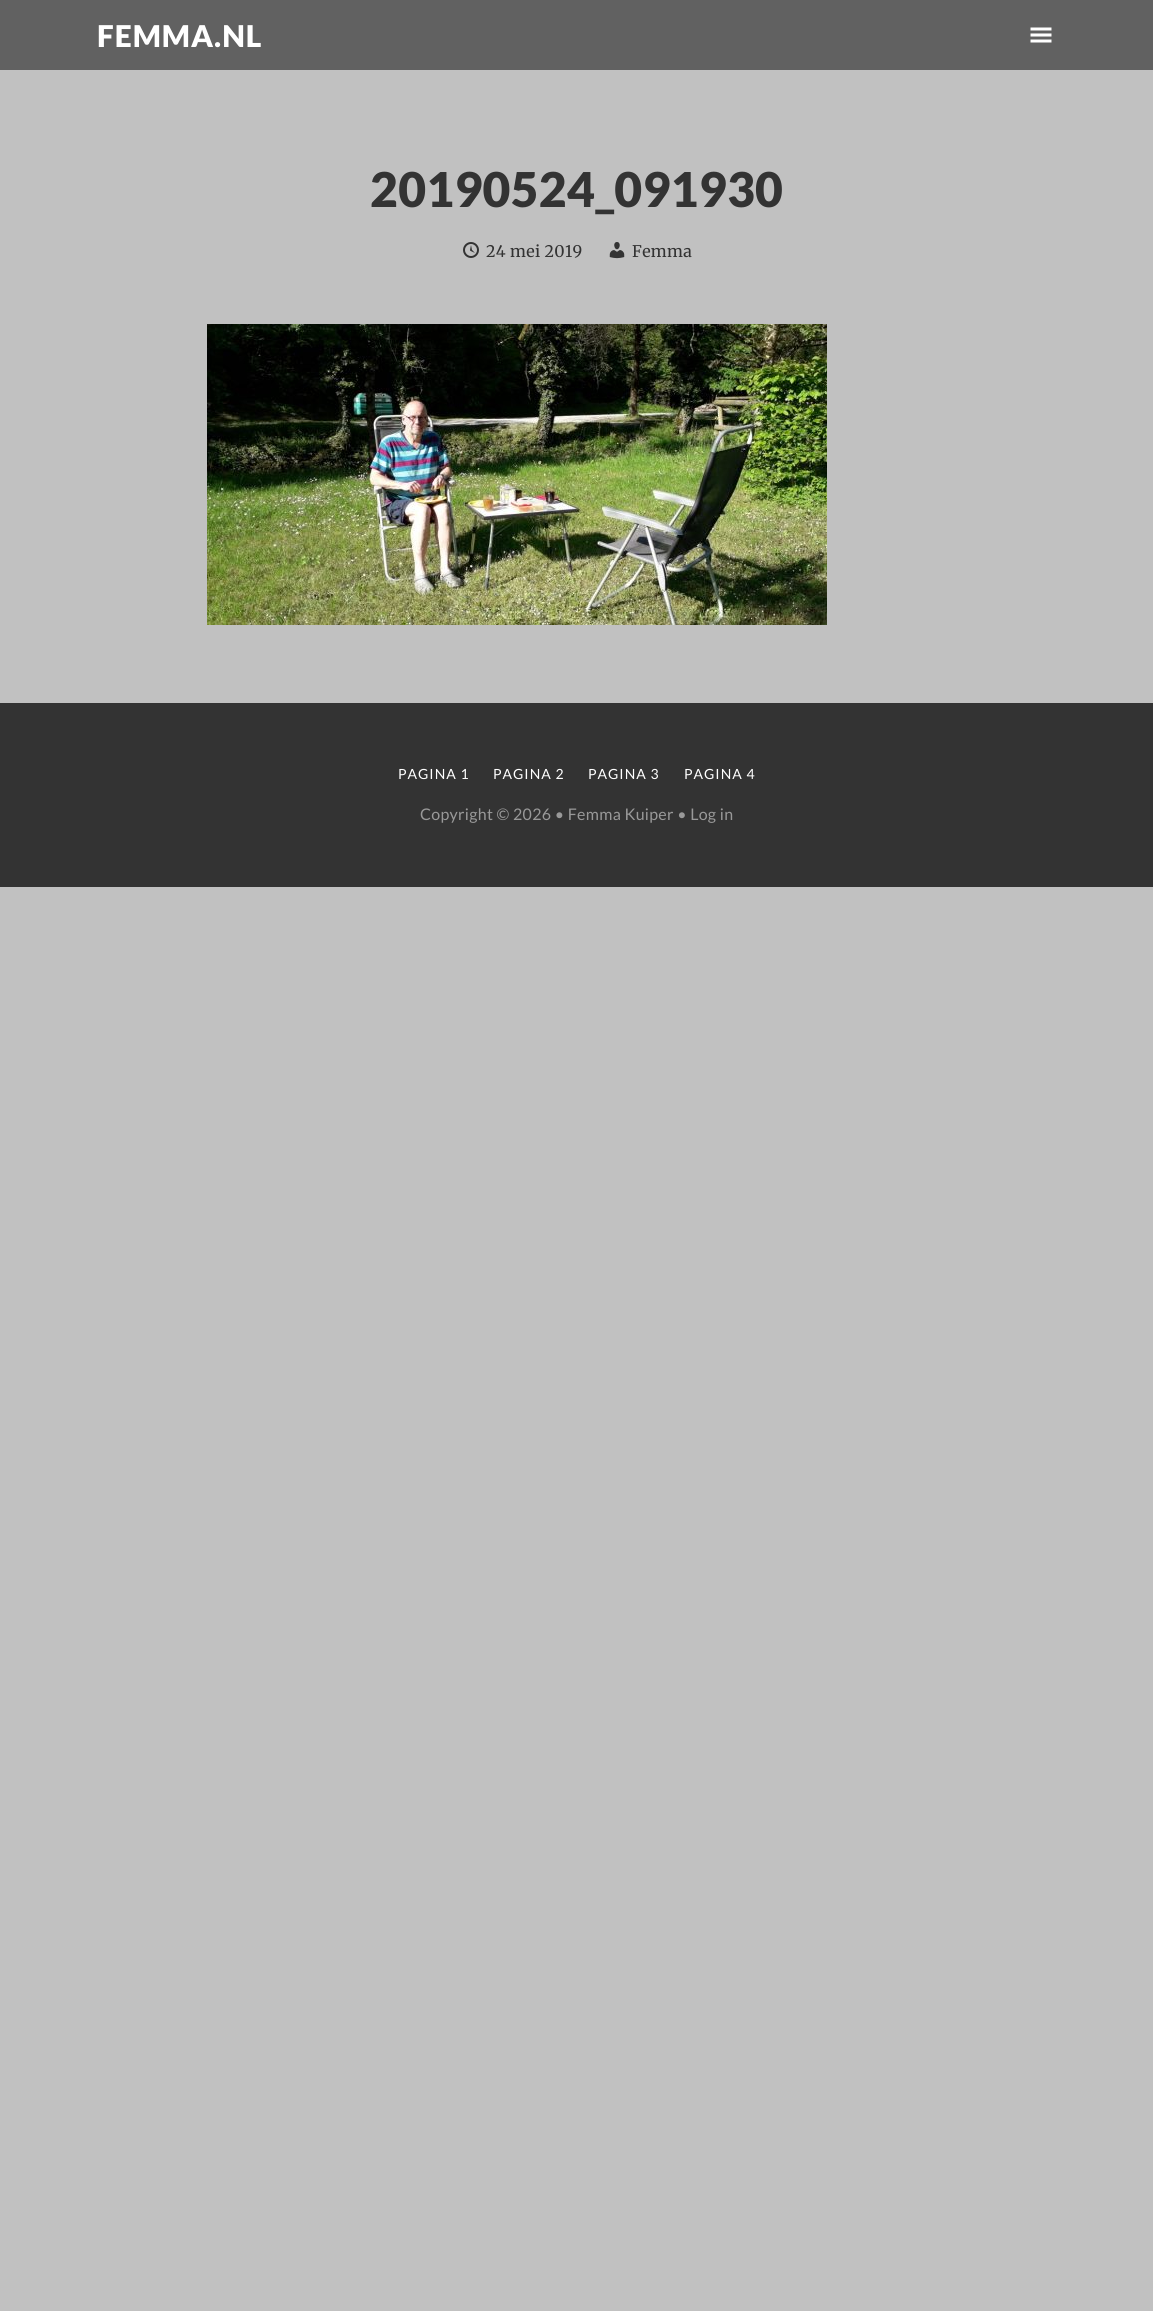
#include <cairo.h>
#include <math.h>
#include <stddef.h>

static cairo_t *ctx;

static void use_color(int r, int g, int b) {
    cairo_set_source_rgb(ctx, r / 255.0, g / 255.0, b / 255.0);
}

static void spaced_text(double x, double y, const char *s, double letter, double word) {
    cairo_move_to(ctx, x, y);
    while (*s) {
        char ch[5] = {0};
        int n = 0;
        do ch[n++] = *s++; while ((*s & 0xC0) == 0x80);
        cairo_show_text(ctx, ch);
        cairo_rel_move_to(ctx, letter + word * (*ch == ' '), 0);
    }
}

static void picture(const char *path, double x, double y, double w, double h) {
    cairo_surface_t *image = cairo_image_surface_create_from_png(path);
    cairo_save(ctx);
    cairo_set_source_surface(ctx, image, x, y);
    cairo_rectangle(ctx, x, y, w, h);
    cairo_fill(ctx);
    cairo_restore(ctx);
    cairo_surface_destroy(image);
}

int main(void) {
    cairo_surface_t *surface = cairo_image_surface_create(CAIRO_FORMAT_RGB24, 1153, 2311);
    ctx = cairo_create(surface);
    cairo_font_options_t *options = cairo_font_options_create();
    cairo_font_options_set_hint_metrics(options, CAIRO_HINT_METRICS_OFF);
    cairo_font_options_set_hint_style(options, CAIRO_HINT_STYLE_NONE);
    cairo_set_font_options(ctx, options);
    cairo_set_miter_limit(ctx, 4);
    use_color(193, 193, 193);
    cairo_paint(ctx);
    use_color(97, 97, 97);
    cairo_rectangle(ctx, 0, 0, 1153, 70);
    cairo_fill(ctx);
    cairo_select_font_face(ctx, "Lato Black", CAIRO_FONT_SLANT_NORMAL, CAIRO_FONT_WEIGHT_NORMAL);
    cairo_set_font_size(ctx, 30);
    use_color(255, 255, 255);
    spaced_text(97, 47, "FEMMA.NL", 1, 0);
    picture("img1.png", 1030, 27, 22, 16);
    cairo_set_font_size(ctx, 48);
    use_color(51, 51, 51);
    spaced_text(370, 207, "20190524_091930", 0.3, 0);
    picture("img2.png", 463, 242, 16, 16);
    cairo_select_font_face(ctx, "Merriweather", CAIRO_FONT_SLANT_NORMAL, CAIRO_FONT_WEIGHT_NORMAL);
    cairo_set_font_size(ctx, 16);
    spaced_text(486, 257, "24 mei 2019", 0.3, 0);
    picture("img3.png", 609, 242, 16, 17);
    spaced_text(632, 257, "Femma", 0.3, 0);
    picture("img4.png", 207, 324, 620, 301);
    cairo_rectangle(ctx, 0, 703, 1153, 184);
    cairo_fill(ctx);
    cairo_select_font_face(ctx, "Lato", CAIRO_FONT_SLANT_NORMAL, CAIRO_FONT_WEIGHT_NORMAL);
    cairo_set_font_size(ctx, 14);
    use_color(255, 255, 255);
    spaced_text(398, 779, "PAGINA 1", 1, 0);
    spaced_text(493, 779, "PAGINA 2", 1, 0);
    spaced_text(588, 779, "PAGINA 3", 1, 0);
    spaced_text(684, 779, "PAGINA 4", 1, 0);
    cairo_set_font_size(ctx, 16);
    use_color(153, 153, 153);
    spaced_text(420, 820, "Copyright © 2026 • Femma Kuiper • Log in", 0.3, 0);
    cairo_surface_write_to_png(surface, "result.png");
    cairo_font_options_destroy(options);
    cairo_destroy(ctx);
    cairo_surface_destroy(surface);
    return 0;
}
